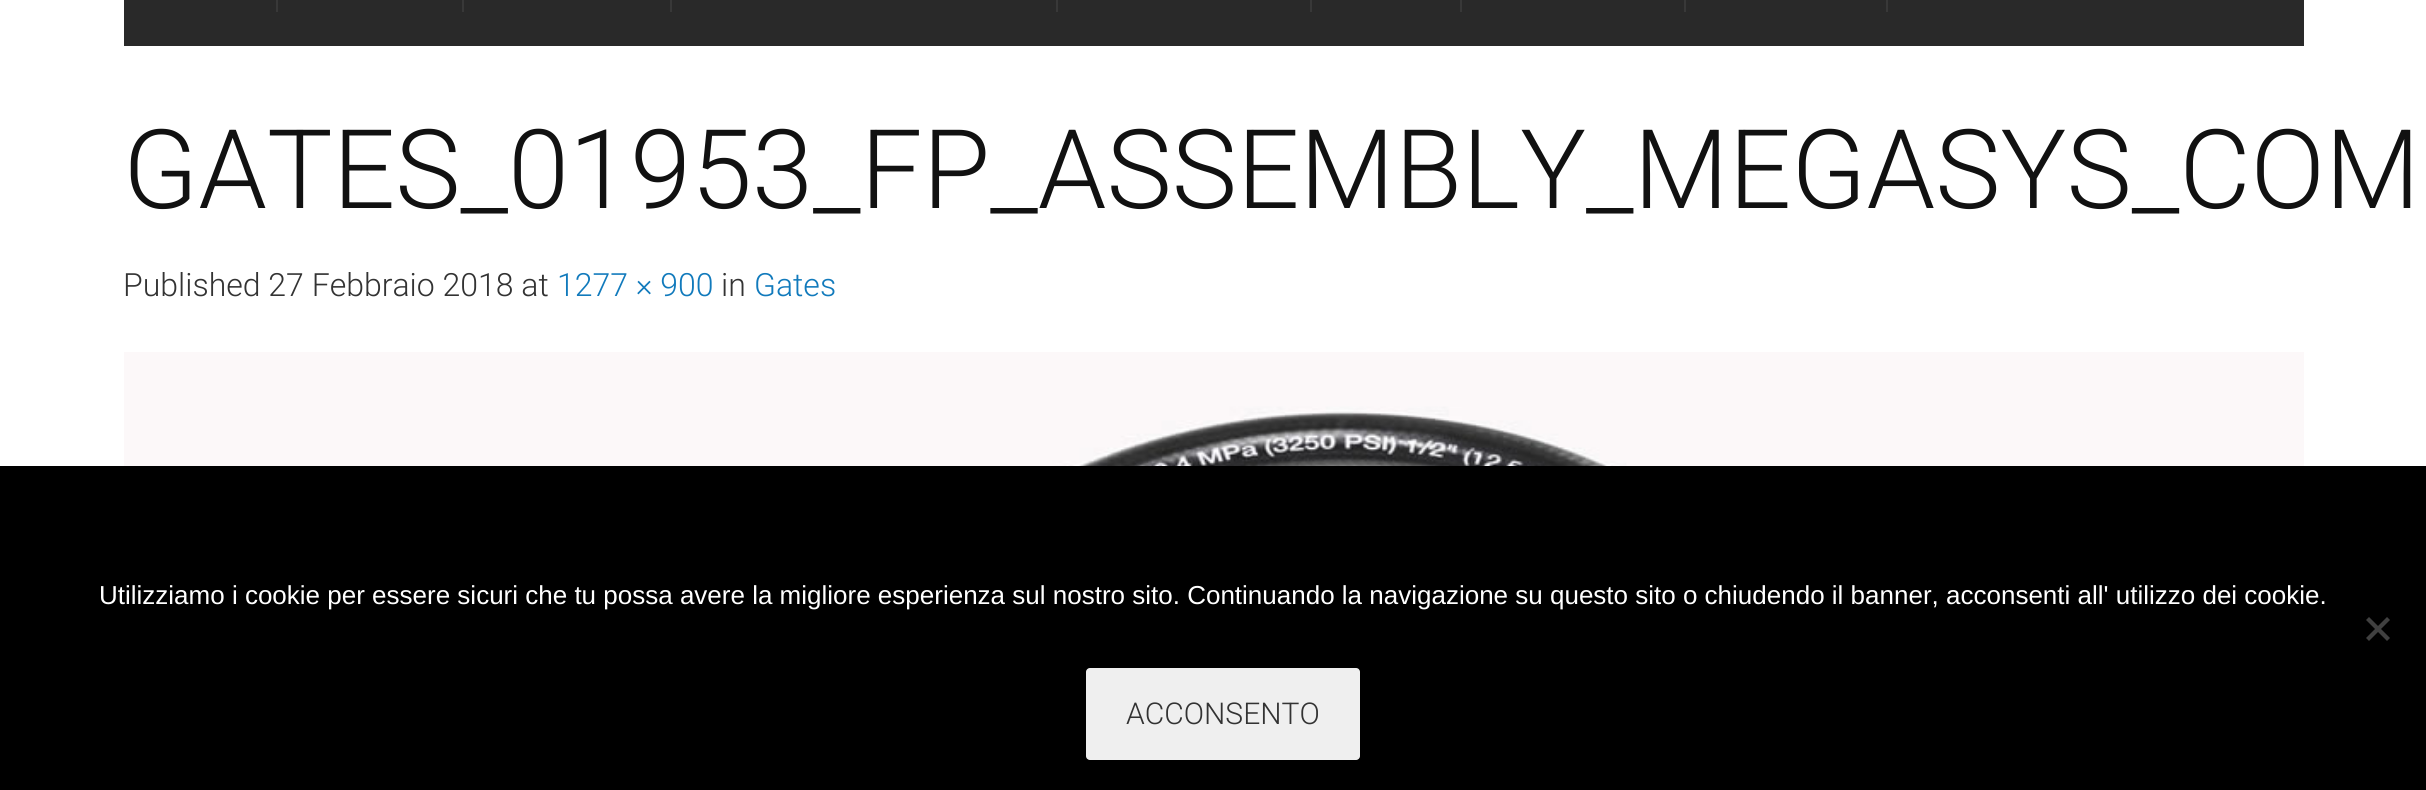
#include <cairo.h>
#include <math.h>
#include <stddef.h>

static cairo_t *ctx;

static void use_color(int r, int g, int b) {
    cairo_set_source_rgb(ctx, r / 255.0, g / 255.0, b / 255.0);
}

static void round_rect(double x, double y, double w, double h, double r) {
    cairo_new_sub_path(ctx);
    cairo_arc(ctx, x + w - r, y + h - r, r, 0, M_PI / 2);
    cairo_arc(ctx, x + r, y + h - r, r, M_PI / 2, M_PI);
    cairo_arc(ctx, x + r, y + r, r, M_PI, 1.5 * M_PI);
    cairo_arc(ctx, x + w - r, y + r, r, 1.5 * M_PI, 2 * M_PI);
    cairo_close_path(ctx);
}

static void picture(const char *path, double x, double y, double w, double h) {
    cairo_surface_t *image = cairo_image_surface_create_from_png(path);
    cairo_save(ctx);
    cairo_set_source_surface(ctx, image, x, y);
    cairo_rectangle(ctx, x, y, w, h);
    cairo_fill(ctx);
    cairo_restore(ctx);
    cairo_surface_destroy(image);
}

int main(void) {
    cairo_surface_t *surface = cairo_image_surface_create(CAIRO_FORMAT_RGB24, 2426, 790);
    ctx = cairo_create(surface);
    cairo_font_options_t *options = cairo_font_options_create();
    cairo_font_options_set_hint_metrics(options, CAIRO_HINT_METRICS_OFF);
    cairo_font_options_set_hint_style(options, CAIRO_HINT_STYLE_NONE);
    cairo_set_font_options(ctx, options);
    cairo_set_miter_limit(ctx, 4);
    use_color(255, 255, 255);
    cairo_paint(ctx);
    use_color(41, 41, 41);
    cairo_rectangle(ctx, 124, 0, 2180, 46);
    cairo_fill(ctx);
    use_color(56, 56, 56);
    cairo_rectangle(ctx, 276, 0, 2, 12);
    cairo_fill(ctx);
    cairo_rectangle(ctx, 462, 0, 2, 12);
    cairo_fill(ctx);
    cairo_rectangle(ctx, 670, 0, 2, 12);
    cairo_fill(ctx);
    cairo_rectangle(ctx, 1056, 0, 2, 12);
    cairo_fill(ctx);
    cairo_rectangle(ctx, 1310, 0, 2, 12);
    cairo_fill(ctx);
    cairo_rectangle(ctx, 1460, 0, 2, 12);
    cairo_fill(ctx);
    cairo_rectangle(ctx, 1684, 0, 2, 12);
    cairo_fill(ctx);
    cairo_rectangle(ctx, 1886, 0, 2, 12);
    cairo_fill(ctx);
    cairo_select_font_face(ctx, "Roboto Light", CAIRO_FONT_SLANT_NORMAL, CAIRO_FONT_WEIGHT_NORMAL);
    cairo_set_font_size(ctx, 110);
    use_color(17, 17, 17);
    cairo_move_to(ctx, 123, 208);
    cairo_show_text(ctx, "GATES_01953_FP_ASSEMBLY_MEGASYS_COM");
    cairo_set_font_size(ctx, 32);
    use_color(51, 51, 51);
    cairo_move_to(ctx, 123, 296);
    cairo_show_text(ctx, "Published 27 Febbraio 2018 at");
    use_color(17, 122, 188);
    cairo_move_to(ctx, 557, 296);
    cairo_show_text(ctx, "1277 × 900");
    use_color(51, 51, 51);
    cairo_move_to(ctx, 721, 296);
    cairo_show_text(ctx, "in");
    use_color(17, 122, 188);
    cairo_move_to(ctx, 754, 296);
    cairo_show_text(ctx, "Gates");
    picture("img1.png", 124, 352, 2180, 114);
    use_color(0, 0, 0);
    cairo_rectangle(ctx, 0, 466, 2426, 324);
    cairo_fill(ctx);
    cairo_select_font_face(ctx, "Liberation Sans", CAIRO_FONT_SLANT_NORMAL, CAIRO_FONT_WEIGHT_NORMAL);
    cairo_set_font_size(ctx, 26);
    use_color(255, 255, 255);
    cairo_move_to(ctx, 99, 604);
    cairo_show_text(ctx, "Utilizziamo i cookie per essere sicuri che tu possa avere la migliore esperienza sul nostro sito. Continuando la navigazione su questo sito o chiudendo il banner, acconsenti all' utilizzo dei cookie.");
    use_color(64, 64, 64);
    cairo_new_path(ctx);
    cairo_move_to(ctx, 2387, 617);
    cairo_line_to(ctx, 2390, 620);
    cairo_line_to(ctx, 2369, 641);
    cairo_line_to(ctx, 2366, 638);
    cairo_close_path(ctx);
    cairo_fill(ctx);
    cairo_new_path(ctx);
    cairo_move_to(ctx, 2366, 620);
    cairo_line_to(ctx, 2369, 617);
    cairo_line_to(ctx, 2390, 638);
    cairo_line_to(ctx, 2387, 641);
    cairo_close_path(ctx);
    cairo_fill(ctx);
    use_color(239, 239, 239);
    round_rect(1086, 668, 274, 92, 4);
    cairo_fill(ctx);
    cairo_select_font_face(ctx, "Roboto Light", CAIRO_FONT_SLANT_NORMAL, CAIRO_FONT_WEIGHT_NORMAL);
    cairo_set_font_size(ctx, 30);
    use_color(51, 51, 51);
    cairo_move_to(ctx, 1126, 724);
    cairo_show_text(ctx, "ACCONSENTO");
    cairo_surface_write_to_png(surface, "result.png");
    cairo_font_options_destroy(options);
    cairo_destroy(ctx);
    cairo_surface_destroy(surface);
    return 0;
}
